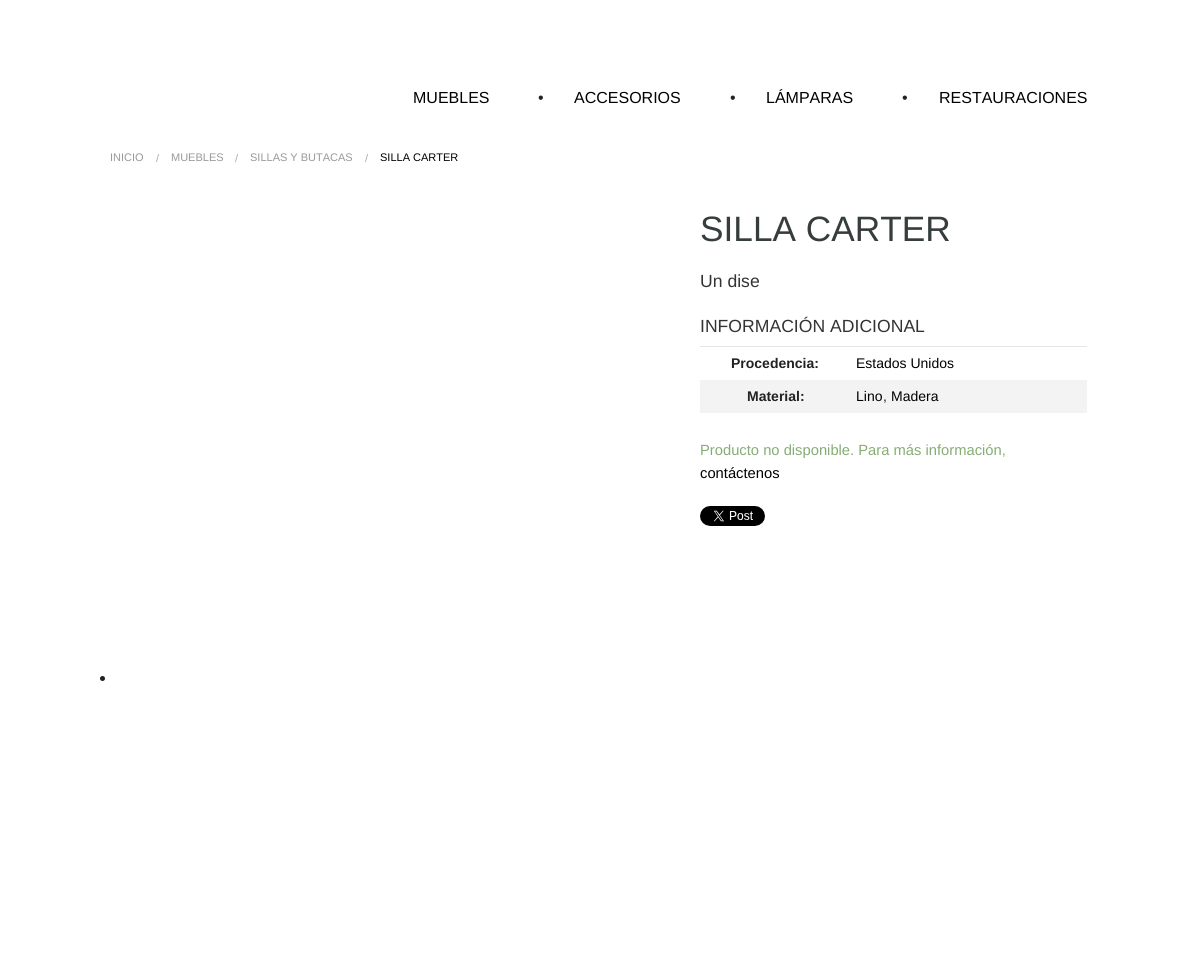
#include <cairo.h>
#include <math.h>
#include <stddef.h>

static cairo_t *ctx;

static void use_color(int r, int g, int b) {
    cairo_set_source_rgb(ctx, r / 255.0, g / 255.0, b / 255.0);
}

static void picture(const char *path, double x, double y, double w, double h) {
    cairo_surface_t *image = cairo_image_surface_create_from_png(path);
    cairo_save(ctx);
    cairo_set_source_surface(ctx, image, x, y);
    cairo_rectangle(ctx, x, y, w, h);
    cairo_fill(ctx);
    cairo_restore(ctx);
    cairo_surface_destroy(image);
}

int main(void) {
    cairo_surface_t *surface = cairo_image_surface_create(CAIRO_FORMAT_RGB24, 1204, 976);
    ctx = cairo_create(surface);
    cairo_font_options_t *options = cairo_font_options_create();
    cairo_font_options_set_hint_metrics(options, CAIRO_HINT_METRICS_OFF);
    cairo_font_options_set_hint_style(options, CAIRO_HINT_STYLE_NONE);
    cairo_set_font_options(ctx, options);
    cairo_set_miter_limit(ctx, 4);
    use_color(255, 255, 255);
    cairo_paint(ctx);
    cairo_select_font_face(ctx, "Liberation Sans", CAIRO_FONT_SLANT_NORMAL, CAIRO_FONT_WEIGHT_NORMAL);
    cairo_set_font_size(ctx, 16);
    use_color(0, 0, 0);
    cairo_move_to(ctx, 413, 103);
    cairo_show_text(ctx, "MUEBLES");
    use_color(34, 34, 34);
    cairo_move_to(ctx, 538, 103);
    cairo_show_text(ctx, "•");
    use_color(0, 0, 0);
    cairo_move_to(ctx, 574, 103);
    cairo_show_text(ctx, "ACCESORIOS");
    use_color(34, 34, 34);
    cairo_move_to(ctx, 730, 103);
    cairo_show_text(ctx, "•");
    use_color(0, 0, 0);
    cairo_move_to(ctx, 766, 103);
    cairo_show_text(ctx, "LÁMPARAS");
    use_color(34, 34, 34);
    cairo_move_to(ctx, 902, 103);
    cairo_show_text(ctx, "•");
    use_color(0, 0, 0);
    cairo_move_to(ctx, 939, 103);
    cairo_show_text(ctx, "RESTAURACIONES");
    cairo_set_font_size(ctx, 11);
    use_color(153, 153, 153);
    cairo_move_to(ctx, 110, 161);
    cairo_show_text(ctx, "INICIO");
    use_color(170, 170, 170);
    cairo_move_to(ctx, 156, 162);
    cairo_show_text(ctx, "/");
    use_color(153, 153, 153);
    cairo_move_to(ctx, 171, 161);
    cairo_show_text(ctx, "MUEBLES");
    use_color(170, 170, 170);
    cairo_move_to(ctx, 235, 162);
    cairo_show_text(ctx, "/");
    use_color(153, 153, 153);
    cairo_move_to(ctx, 250, 161);
    cairo_show_text(ctx, "SILLAS Y BUTACAS");
    use_color(170, 170, 170);
    cairo_move_to(ctx, 365, 162);
    cairo_show_text(ctx, "/");
    use_color(0, 0, 0);
    cairo_move_to(ctx, 380, 161);
    cairo_show_text(ctx, "SILLA CARTER");
    cairo_set_font_size(ctx, 35.25);
    use_color(54, 61, 61);
    cairo_move_to(ctx, 700, 241);
    cairo_show_text(ctx, "SILLA CARTER");
    cairo_set_font_size(ctx, 17.6);
    use_color(51, 51, 51);
    cairo_move_to(ctx, 700, 287);
    cairo_show_text(ctx, "Un dise");
    cairo_move_to(ctx, 700, 332);
    cairo_show_text(ctx, "INFORMACIÓN ADICIONAL");
    use_color(230, 230, 230);
    cairo_rectangle(ctx, 700, 346, 387, 1);
    cairo_fill(ctx);
    cairo_select_font_face(ctx, "Liberation Sans", CAIRO_FONT_SLANT_NORMAL, CAIRO_FONT_WEIGHT_BOLD);
    cairo_set_font_size(ctx, 14);
    use_color(34, 34, 34);
    cairo_move_to(ctx, 731, 368);
    cairo_show_text(ctx, "Procedencia:");
    cairo_select_font_face(ctx, "Liberation Sans", CAIRO_FONT_SLANT_NORMAL, CAIRO_FONT_WEIGHT_NORMAL);
    use_color(0, 0, 0);
    cairo_move_to(ctx, 856, 368);
    cairo_show_text(ctx, "Estados Unidos");
    use_color(243, 243, 243);
    cairo_rectangle(ctx, 700, 380, 387, 33);
    cairo_fill(ctx);
    cairo_select_font_face(ctx, "Liberation Sans", CAIRO_FONT_SLANT_NORMAL, CAIRO_FONT_WEIGHT_BOLD);
    use_color(34, 34, 34);
    cairo_move_to(ctx, 747, 401);
    cairo_show_text(ctx, "Material:");
    cairo_select_font_face(ctx, "Liberation Sans", CAIRO_FONT_SLANT_NORMAL, CAIRO_FONT_WEIGHT_NORMAL);
    use_color(0, 0, 0);
    cairo_move_to(ctx, 856, 401);
    cairo_show_text(ctx, "Lino");
    use_color(34, 34, 34);
    cairo_move_to(ctx, 883, 401);
    cairo_show_text(ctx, ",");
    use_color(0, 0, 0);
    cairo_move_to(ctx, 891, 401);
    cairo_show_text(ctx, "Madera");
    cairo_set_font_size(ctx, 14.75);
    use_color(133, 173, 116);
    cairo_move_to(ctx, 700, 455);
    cairo_show_text(ctx, "Producto no disponible. Para más información,");
    use_color(0, 0, 0);
    cairo_move_to(ctx, 700, 478);
    cairo_show_text(ctx, "contáctenos");
    picture("img1.png", 700, 506, 65, 20);
    use_color(34, 34, 34);
    cairo_arc(ctx, 102.5, 678.5, 2.5, 0, 2 * M_PI);
    cairo_fill(ctx);
    cairo_surface_write_to_png(surface, "result.png");
    cairo_font_options_destroy(options);
    cairo_destroy(ctx);
    cairo_surface_destroy(surface);
    return 0;
}
